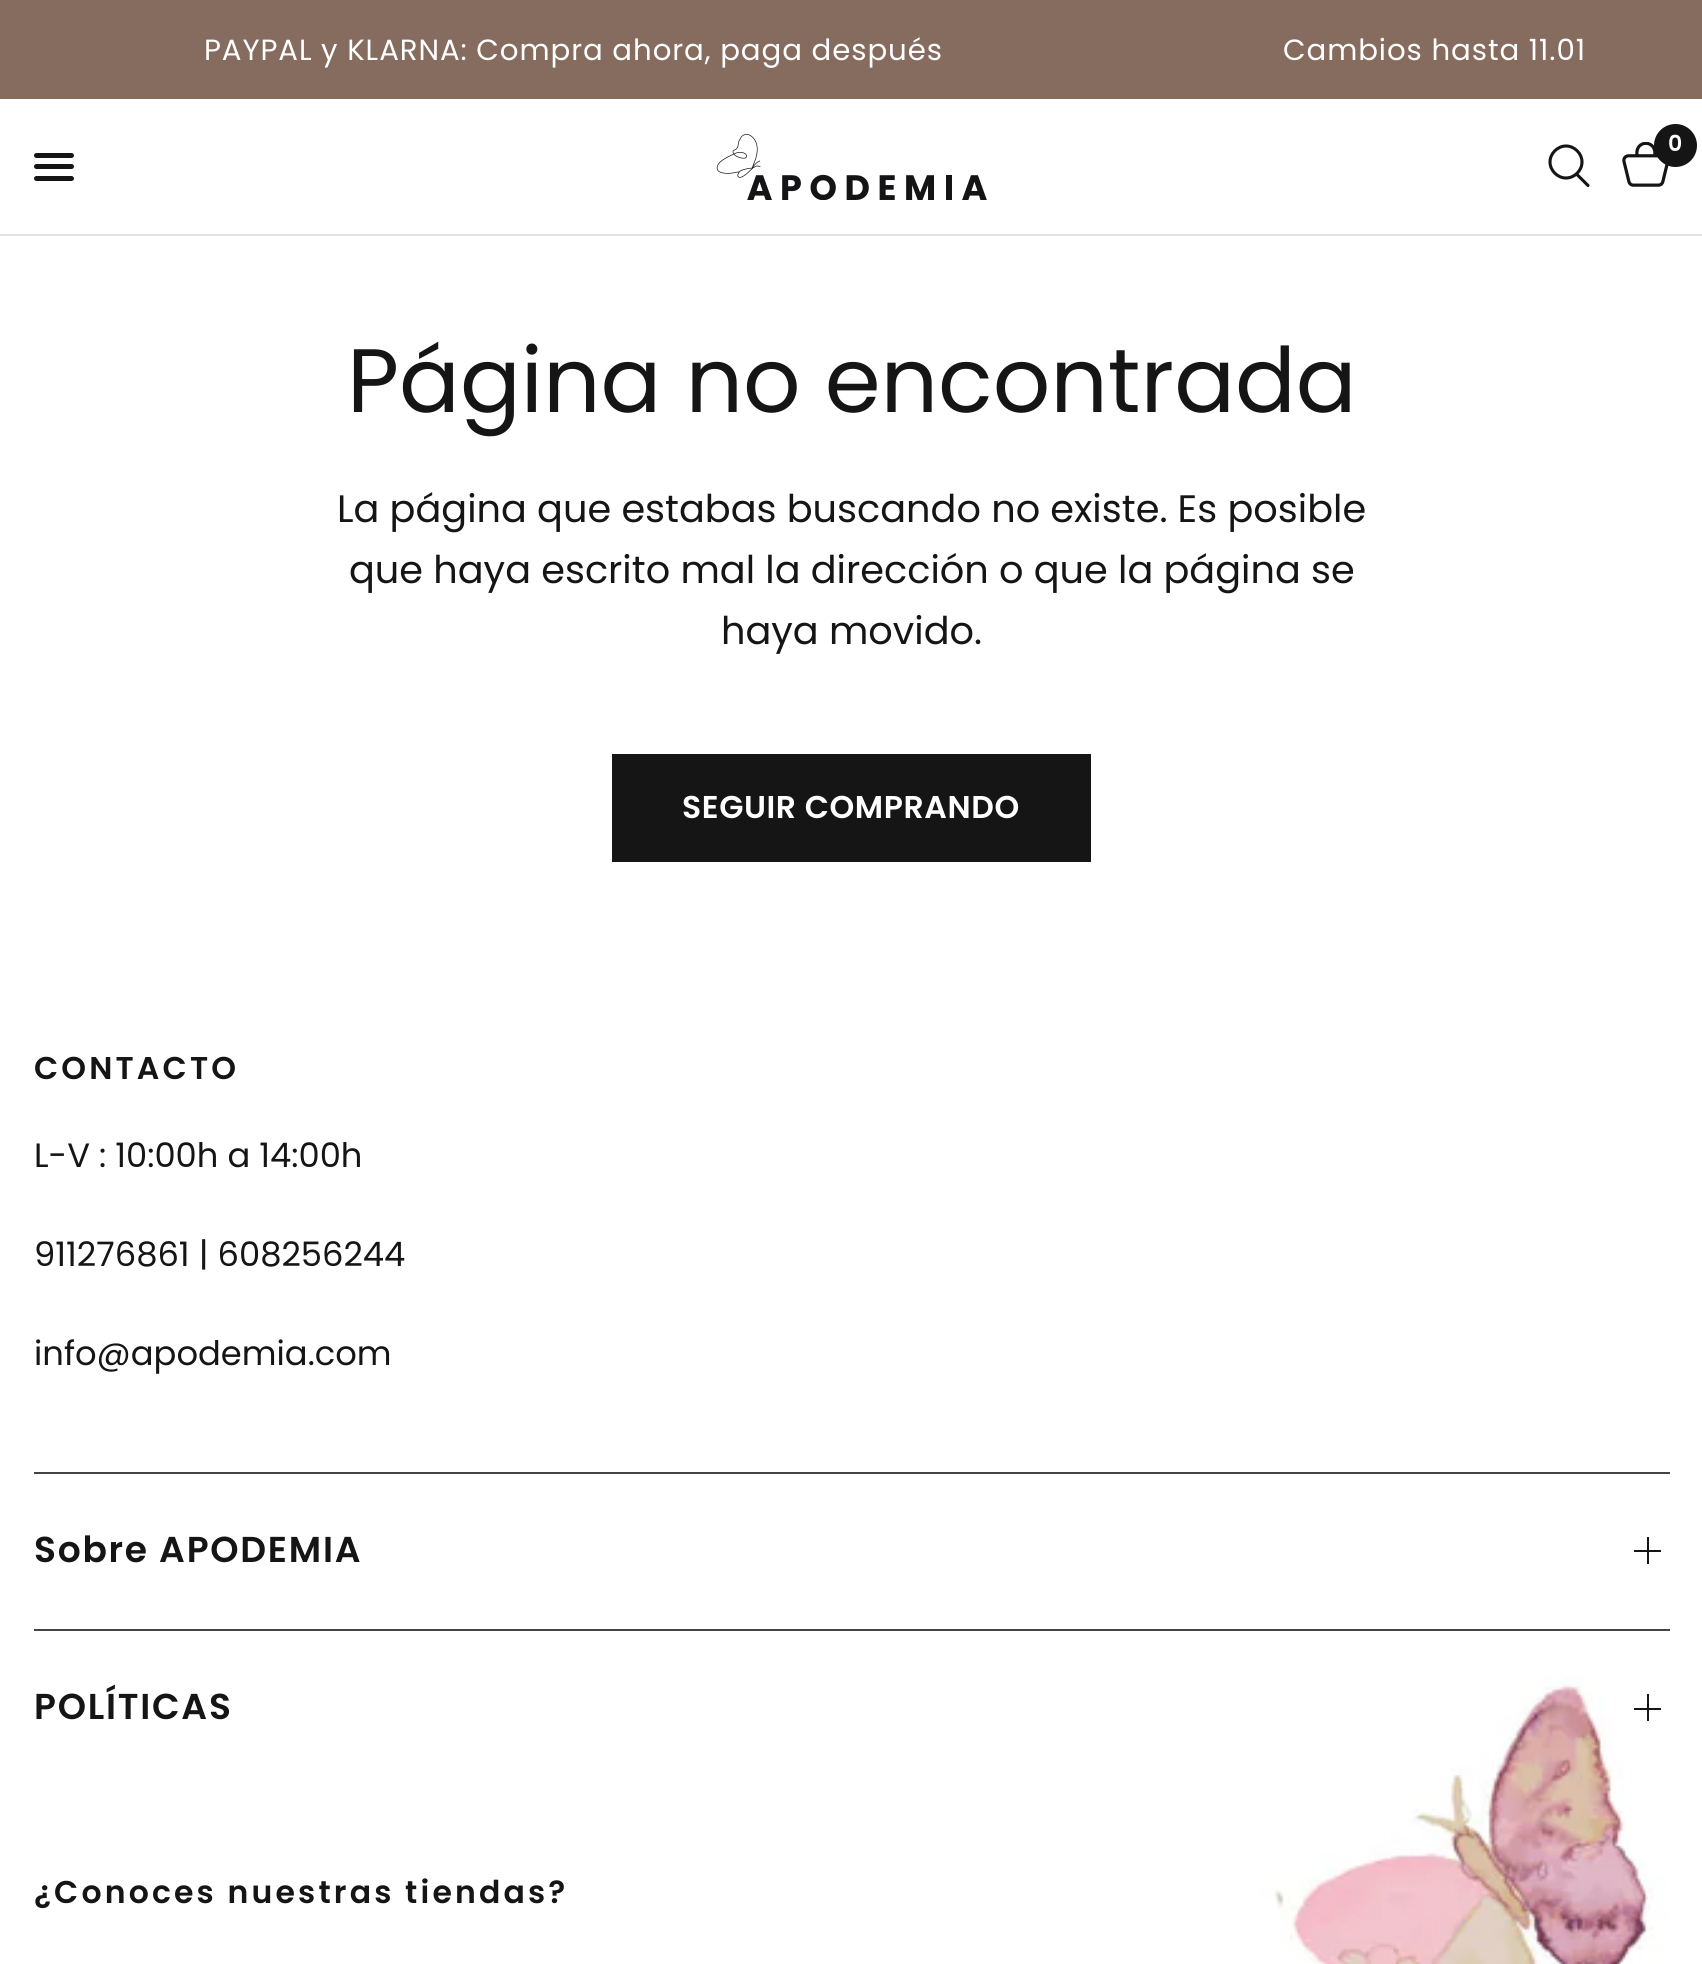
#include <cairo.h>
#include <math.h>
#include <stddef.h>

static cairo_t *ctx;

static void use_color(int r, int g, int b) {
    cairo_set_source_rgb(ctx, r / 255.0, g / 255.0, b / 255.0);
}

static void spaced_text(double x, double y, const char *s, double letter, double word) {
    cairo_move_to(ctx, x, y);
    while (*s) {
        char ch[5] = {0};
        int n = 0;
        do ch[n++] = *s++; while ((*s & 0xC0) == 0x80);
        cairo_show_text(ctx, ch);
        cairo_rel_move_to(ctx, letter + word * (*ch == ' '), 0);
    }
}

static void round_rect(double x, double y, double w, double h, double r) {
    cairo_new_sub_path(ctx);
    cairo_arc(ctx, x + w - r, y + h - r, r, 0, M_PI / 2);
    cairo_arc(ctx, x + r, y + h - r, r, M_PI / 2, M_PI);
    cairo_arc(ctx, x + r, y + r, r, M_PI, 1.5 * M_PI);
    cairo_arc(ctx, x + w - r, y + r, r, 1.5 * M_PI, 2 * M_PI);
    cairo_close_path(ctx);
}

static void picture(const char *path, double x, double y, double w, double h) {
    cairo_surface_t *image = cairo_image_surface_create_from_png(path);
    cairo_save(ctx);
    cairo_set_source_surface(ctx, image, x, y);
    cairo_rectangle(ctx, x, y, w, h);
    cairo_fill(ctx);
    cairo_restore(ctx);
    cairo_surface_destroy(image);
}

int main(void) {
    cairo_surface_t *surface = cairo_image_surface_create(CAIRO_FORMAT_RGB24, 1702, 1964);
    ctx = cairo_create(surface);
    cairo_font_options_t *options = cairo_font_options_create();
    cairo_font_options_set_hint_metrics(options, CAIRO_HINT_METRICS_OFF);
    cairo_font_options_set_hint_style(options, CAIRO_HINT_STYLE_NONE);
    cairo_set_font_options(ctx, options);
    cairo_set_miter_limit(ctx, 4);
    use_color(255, 255, 255);
    cairo_paint(ctx);
    use_color(133, 108, 94);
    cairo_rectangle(ctx, 0, 0, 1702, 99);
    cairo_fill(ctx);
    cairo_select_font_face(ctx, "Poppins", CAIRO_FONT_SLANT_NORMAL, CAIRO_FONT_WEIGHT_NORMAL);
    cairo_set_font_size(ctx, 29.25);
    use_color(255, 255, 255);
    spaced_text(204, 60, "PAYPAL y KLARNA: Compra ahora, paga después", 0.9, 0);
    spaced_text(1283, 60, "Cambios hasta 11.01", 0.9, 0);
    use_color(226, 226, 226);
    cairo_rectangle(ctx, 0, 234, 1702, 2);
    cairo_fill(ctx);
    picture("img1.png", 716, 134, 271, 66);
    cairo_new_path(ctx);
    cairo_move_to(ctx, 1577, 174.5);
    cairo_line_to(ctx, 1588, 185.5);
    cairo_move_to(ctx, 1582, 162);
    cairo_curve_to(ctx, 1582, 170.5, 1574.5, 178, 1566, 178);
    cairo_curve_to(ctx, 1557.5, 178, 1550, 170.5, 1550, 162);
    cairo_curve_to(ctx, 1550, 153.5, 1557.5, 146, 1566, 146);
    cairo_curve_to(ctx, 1574.5, 146, 1582, 153.5, 1582, 162);
    cairo_close_path(ctx);
    use_color(21, 21, 21);
    cairo_set_line_width(ctx, 3.1);
    cairo_set_line_cap(ctx, CAIRO_LINE_CAP_ROUND);
    cairo_set_line_join(ctx, CAIRO_LINE_JOIN_ROUND);
    cairo_stroke(ctx);
    picture("img2.png", 1622, 142, 47, 45);
    cairo_arc(ctx, 1675.5, 145.5, 21.5, 0, 2 * M_PI);
    cairo_fill(ctx);
    cairo_select_font_face(ctx, "Poppins SemiBold", CAIRO_FONT_SLANT_NORMAL, CAIRO_FONT_WEIGHT_NORMAL);
    cairo_set_font_size(ctx, 22);
    use_color(255, 255, 255);
    cairo_move_to(ctx, 1668, 151);
    cairo_show_text(ctx, "0");
    use_color(21, 21, 21);
    round_rect(34, 153, 40, 5, 2.5);
    cairo_fill(ctx);
    round_rect(34, 164, 40, 5, 2.5);
    cairo_fill(ctx);
    round_rect(34, 176, 40, 5, 2.5);
    cairo_fill(ctx);
    cairo_select_font_face(ctx, "Poppins", CAIRO_FONT_SLANT_NORMAL, CAIRO_FONT_WEIGHT_NORMAL);
    cairo_set_font_size(ctx, 90);
    cairo_move_to(ctx, 347, 412);
    cairo_show_text(ctx, "Página no encontrada");
    cairo_set_font_size(ctx, 38.25);
    cairo_move_to(ctx, 337, 522);
    cairo_show_text(ctx, "La página que estabas buscando no existe. Es posible");
    cairo_move_to(ctx, 349, 583);
    cairo_show_text(ctx, "que haya escrito mal la dirección o que la página se");
    cairo_move_to(ctx, 721, 644);
    cairo_show_text(ctx, "haya movido.");
    cairo_rectangle(ctx, 612, 754, 479, 108);
    cairo_fill(ctx);
    cairo_select_font_face(ctx, "Poppins SemiBold", CAIRO_FONT_SLANT_NORMAL, CAIRO_FONT_WEIGHT_NORMAL);
    cairo_set_font_size(ctx, 31.5);
    use_color(255, 255, 255);
    spaced_text(682, 818, "SEGUIR COMPRANDO", 0.6, 0);
    picture("img3.png", 0, 952, 1702, 1012);
    use_color(21, 21, 21);
    spaced_text(34, 1079, "CONTACTO", 3.15, 0);
    cairo_select_font_face(ctx, "Poppins", CAIRO_FONT_SLANT_NORMAL, CAIRO_FONT_WEIGHT_NORMAL);
    cairo_set_font_size(ctx, 33.75);
    cairo_move_to(ctx, 34, 1167);
    cairo_show_text(ctx, "L-V : 10:00h a 14:00h");
    cairo_move_to(ctx, 34, 1266);
    cairo_show_text(ctx, "911276861 | 608256244");
    cairo_move_to(ctx, 34, 1365);
    cairo_show_text(ctx, "info@apodemia.com");
    use_color(68, 68, 68);
    cairo_rectangle(ctx, 34, 1472, 1636, 2);
    cairo_fill(ctx);
    cairo_select_font_face(ctx, "Poppins SemiBold", CAIRO_FONT_SLANT_NORMAL, CAIRO_FONT_WEIGHT_NORMAL);
    cairo_set_font_size(ctx, 36);
    use_color(21, 21, 21);
    spaced_text(34, 1562, "Sobre APODEMIA", 1.75, 0);
    cairo_rectangle(ctx, 1647, 1537, 2, 27);
    cairo_fill(ctx);
    cairo_rectangle(ctx, 1634, 1550, 27, 2);
    cairo_fill(ctx);
    use_color(68, 68, 68);
    cairo_rectangle(ctx, 34, 1629, 1636, 2);
    cairo_fill(ctx);
    use_color(21, 21, 21);
    spaced_text(34, 1719, "POLÍTICAS", 1.75, 0);
    cairo_rectangle(ctx, 1647, 1694, 2, 27);
    cairo_fill(ctx);
    cairo_rectangle(ctx, 1634, 1708, 27, 2);
    cairo_fill(ctx);
    cairo_set_font_size(ctx, 31.5);
    spaced_text(34, 1903, "¿Conoces nuestras tiendas?", 3.15, 0);
    cairo_surface_write_to_png(surface, "result.png");
    cairo_font_options_destroy(options);
    cairo_destroy(ctx);
    cairo_surface_destroy(surface);
    return 0;
}
